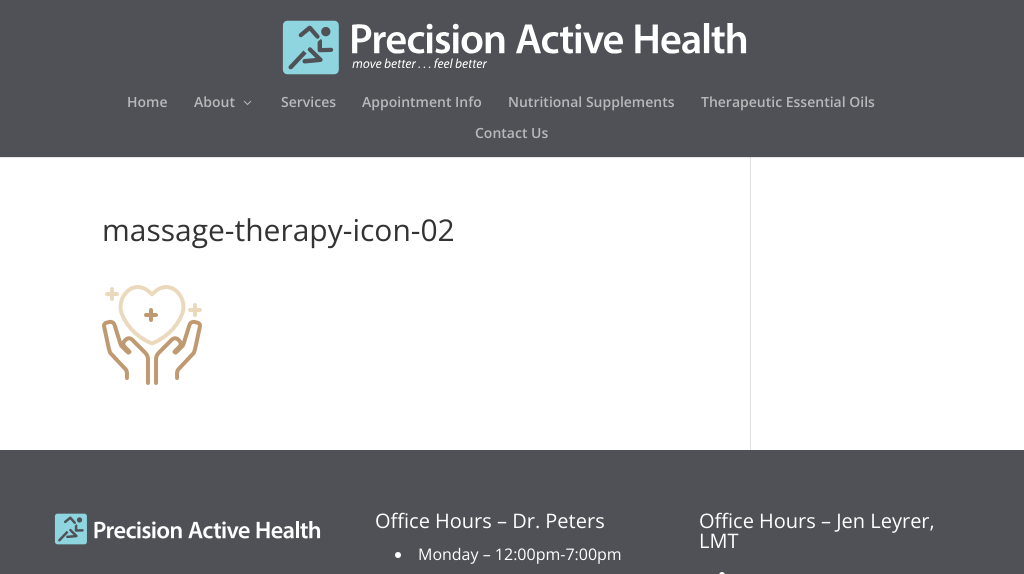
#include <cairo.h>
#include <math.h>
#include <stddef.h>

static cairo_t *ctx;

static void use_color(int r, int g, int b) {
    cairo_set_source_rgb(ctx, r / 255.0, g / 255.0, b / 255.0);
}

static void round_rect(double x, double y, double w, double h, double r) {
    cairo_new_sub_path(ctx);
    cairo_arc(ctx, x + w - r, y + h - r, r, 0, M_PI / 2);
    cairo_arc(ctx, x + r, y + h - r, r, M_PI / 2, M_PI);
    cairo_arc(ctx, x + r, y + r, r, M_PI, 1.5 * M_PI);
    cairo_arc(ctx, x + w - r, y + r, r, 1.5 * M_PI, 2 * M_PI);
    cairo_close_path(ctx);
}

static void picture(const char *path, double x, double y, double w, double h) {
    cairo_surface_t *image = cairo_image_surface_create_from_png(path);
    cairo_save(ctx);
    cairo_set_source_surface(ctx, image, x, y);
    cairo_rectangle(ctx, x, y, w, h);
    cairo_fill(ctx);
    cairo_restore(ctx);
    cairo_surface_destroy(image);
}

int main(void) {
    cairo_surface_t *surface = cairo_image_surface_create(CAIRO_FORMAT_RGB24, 1024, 574);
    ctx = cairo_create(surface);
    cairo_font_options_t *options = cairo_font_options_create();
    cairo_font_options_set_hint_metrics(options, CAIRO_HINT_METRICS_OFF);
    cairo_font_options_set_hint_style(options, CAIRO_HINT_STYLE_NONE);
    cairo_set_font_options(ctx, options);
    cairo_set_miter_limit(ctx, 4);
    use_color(255, 255, 255);
    cairo_paint(ctx);
    use_color(230, 230, 230);
    cairo_rectangle(ctx, 0, 157, 1024, 1);
    cairo_fill(ctx);
    use_color(79, 81, 87);
    cairo_rectangle(ctx, 0, 0, 1024, 157);
    cairo_fill(ctx);
    picture("img1.png", 282, 20, 465, 55);
    cairo_select_font_face(ctx, "Open Sans SemiBold", CAIRO_FONT_SLANT_NORMAL, CAIRO_FONT_WEIGHT_NORMAL);
    cairo_set_font_size(ctx, 14);
    use_color(185, 185, 188);
    cairo_move_to(ctx, 127, 107);
    cairo_show_text(ctx, "Home");
    cairo_move_to(ctx, 194, 107);
    cairo_show_text(ctx, "About");
    picture("img2.png", 243, 100, 9, 5);
    cairo_move_to(ctx, 281, 107);
    cairo_show_text(ctx, "Services");
    cairo_move_to(ctx, 362, 107);
    cairo_show_text(ctx, "Appointment Info");
    cairo_move_to(ctx, 508, 107);
    cairo_show_text(ctx, "Nutritional Supplements");
    cairo_move_to(ctx, 701, 107);
    cairo_show_text(ctx, "Therapeutic Essential Oils");
    cairo_move_to(ctx, 475, 138);
    cairo_show_text(ctx, "Contact Us");
    cairo_select_font_face(ctx, "Open Sans", CAIRO_FONT_SLANT_NORMAL, CAIRO_FONT_WEIGHT_NORMAL);
    cairo_set_font_size(ctx, 30);
    use_color(51, 51, 51);
    cairo_move_to(ctx, 102, 241);
    cairo_show_text(ctx, "massage-therapy-icon-02");
    picture("img3.png", 102, 285, 100, 100);
    use_color(226, 226, 226);
    cairo_rectangle(ctx, 750, 157, 1, 293);
    cairo_fill(ctx);
    use_color(203, 203, 203);
    cairo_rectangle(ctx, 750, 157, 1, 1);
    cairo_fill(ctx);
    use_color(79, 81, 87);
    cairo_rectangle(ctx, 0, 450, 1024, 124);
    cairo_fill(ctx);
    picture("img4.png", 54, 513, 267, 32);
    cairo_set_font_size(ctx, 20);
    use_color(255, 255, 255);
    cairo_move_to(ctx, 375, 528);
    cairo_show_text(ctx, "Office Hours – Dr. Peters");
    cairo_new_path(ctx);
    cairo_arc(ctx, 398, 555, 3, 0, 2 * M_PI);
    cairo_fill(ctx);
    cairo_set_font_size(ctx, 16);
    cairo_move_to(ctx, 418, 560);
    cairo_show_text(ctx, "Monday – 12:00pm-7:00pm");
    cairo_set_font_size(ctx, 20);
    cairo_move_to(ctx, 699, 528);
    cairo_show_text(ctx, "Office Hours – Jen Leyrer,");
    cairo_move_to(ctx, 699, 548);
    cairo_show_text(ctx, "LMT");
    round_rect(719, 572, 6, 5, 3);
    cairo_fill(ctx);
    cairo_surface_write_to_png(surface, "result.png");
    cairo_font_options_destroy(options);
    cairo_destroy(ctx);
    cairo_surface_destroy(surface);
    return 0;
}
